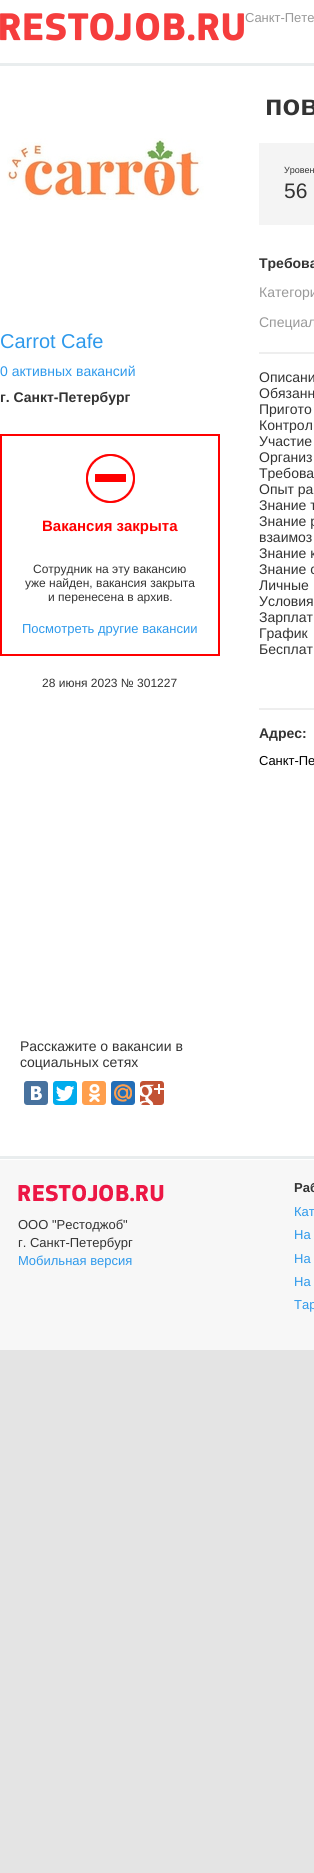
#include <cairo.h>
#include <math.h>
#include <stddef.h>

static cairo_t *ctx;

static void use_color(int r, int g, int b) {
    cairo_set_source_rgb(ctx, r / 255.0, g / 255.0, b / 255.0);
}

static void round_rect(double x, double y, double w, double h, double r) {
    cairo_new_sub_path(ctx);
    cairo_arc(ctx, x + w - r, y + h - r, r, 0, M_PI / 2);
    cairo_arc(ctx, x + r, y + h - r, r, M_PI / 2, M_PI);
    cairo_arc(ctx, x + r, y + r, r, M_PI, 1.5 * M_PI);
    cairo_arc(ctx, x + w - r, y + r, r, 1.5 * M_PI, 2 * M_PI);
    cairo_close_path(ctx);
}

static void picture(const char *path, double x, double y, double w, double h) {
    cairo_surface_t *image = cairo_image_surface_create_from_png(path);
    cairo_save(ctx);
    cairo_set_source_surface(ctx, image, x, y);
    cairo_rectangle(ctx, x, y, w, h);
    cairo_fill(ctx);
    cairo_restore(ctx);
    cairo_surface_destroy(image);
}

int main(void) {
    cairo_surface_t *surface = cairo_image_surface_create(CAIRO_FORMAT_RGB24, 314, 1873);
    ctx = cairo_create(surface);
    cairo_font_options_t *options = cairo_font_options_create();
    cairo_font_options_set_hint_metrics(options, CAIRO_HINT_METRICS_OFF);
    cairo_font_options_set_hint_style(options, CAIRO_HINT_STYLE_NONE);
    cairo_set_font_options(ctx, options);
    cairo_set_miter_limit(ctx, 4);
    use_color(228, 228, 228);
    cairo_paint(ctx);
    use_color(255, 255, 255);
    cairo_rectangle(ctx, 0, 0, 314, 1156);
    cairo_fill(ctx);
    picture("img1.png", 0, 13, 244, 28);
    cairo_select_font_face(ctx, "Liberation Sans", CAIRO_FONT_SLANT_NORMAL, CAIRO_FONT_WEIGHT_NORMAL);
    cairo_set_font_size(ctx, 13);
    use_color(153, 153, 153);
    cairo_move_to(ctx, 245, 22);
    cairo_show_text(ctx, "Санкт-Пете");
    use_color(233, 237, 238);
    cairo_rectangle(ctx, 0, 63, 314, 3);
    cairo_fill(ctx);
    picture("img2.png", 7, 138, 197, 62);
    cairo_set_font_size(ctx, 20);
    use_color(46, 153, 235);
    cairo_move_to(ctx, 0, 348);
    cairo_show_text(ctx, "Carrot Cafe");
    cairo_set_font_size(ctx, 14);
    cairo_move_to(ctx, 0, 376);
    cairo_show_text(ctx, "0 активных вакансий");
    cairo_select_font_face(ctx, "Liberation Sans", CAIRO_FONT_SLANT_NORMAL, CAIRO_FONT_WEIGHT_BOLD);
    use_color(51, 51, 51);
    cairo_move_to(ctx, 0, 402);
    cairo_show_text(ctx, "г. Санкт-Петербург");
    picture("img3.png", 86, 454, 49, 49);
    cairo_rectangle(ctx, 1, 435, 218, 220);
    use_color(255, 0, 0);
    cairo_stroke(ctx);
    cairo_set_font_size(ctx, 15);
    cairo_move_to(ctx, 42, 531);
    cairo_show_text(ctx, "Вакансия закрыта");
    cairo_select_font_face(ctx, "Liberation Sans", CAIRO_FONT_SLANT_NORMAL, CAIRO_FONT_WEIGHT_NORMAL);
    cairo_set_font_size(ctx, 12);
    use_color(51, 51, 51);
    cairo_move_to(ctx, 33, 573);
    cairo_show_text(ctx, "Сотрудник на эту вакансию");
    cairo_move_to(ctx, 25, 587);
    cairo_show_text(ctx, "уже найден, вакансия закрыта");
    cairo_move_to(ctx, 48, 601);
    cairo_show_text(ctx, "и перенесена в архив.");
    cairo_set_font_size(ctx, 13);
    use_color(46, 153, 235);
    cairo_move_to(ctx, 22, 633);
    cairo_show_text(ctx, "Посмотреть другие вакансии");
    cairo_set_font_size(ctx, 12);
    use_color(51, 51, 51);
    cairo_move_to(ctx, 42, 687);
    cairo_show_text(ctx, "28 июня 2023 № 301227");
    cairo_select_font_face(ctx, "Liberation Sans", CAIRO_FONT_SLANT_NORMAL, CAIRO_FONT_WEIGHT_BOLD);
    cairo_set_font_size(ctx, 29);
    cairo_move_to(ctx, 265, 115);
    cairo_show_text(ctx, "пов");
    use_color(244, 244, 244);
    cairo_rectangle(ctx, 259, 143, 55, 82);
    cairo_fill(ctx);
    cairo_select_font_face(ctx, "Liberation Sans", CAIRO_FONT_SLANT_NORMAL, CAIRO_FONT_WEIGHT_NORMAL);
    cairo_set_font_size(ctx, 9);
    use_color(51, 51, 51);
    cairo_move_to(ctx, 284, 173);
    cairo_show_text(ctx, "Уровен");
    cairo_set_font_size(ctx, 21);
    cairo_move_to(ctx, 284, 198);
    cairo_show_text(ctx, "56");
    cairo_select_font_face(ctx, "Liberation Sans", CAIRO_FONT_SLANT_NORMAL, CAIRO_FONT_WEIGHT_BOLD);
    cairo_set_font_size(ctx, 14);
    cairo_move_to(ctx, 259, 268);
    cairo_show_text(ctx, "Требова");
    use_color(238, 238, 238);
    cairo_rectangle(ctx, 259, 352, 55, 2);
    cairo_fill(ctx);
    cairo_select_font_face(ctx, "Liberation Sans", CAIRO_FONT_SLANT_NORMAL, CAIRO_FONT_WEIGHT_NORMAL);
    use_color(153, 153, 153);
    cairo_move_to(ctx, 259, 297);
    cairo_show_text(ctx, "Категори");
    cairo_move_to(ctx, 259, 327);
    cairo_show_text(ctx, "Специал");
    use_color(238, 238, 238);
    cairo_rectangle(ctx, 259, 708, 55, 2);
    cairo_fill(ctx);
    use_color(51, 51, 51);
    cairo_move_to(ctx, 259, 382);
    cairo_show_text(ctx, "Описани");
    cairo_move_to(ctx, 259, 398);
    cairo_show_text(ctx, "Обязанн");
    cairo_move_to(ctx, 259, 414);
    cairo_show_text(ctx, "Пригото");
    cairo_move_to(ctx, 259, 430);
    cairo_show_text(ctx, "Контрол");
    cairo_move_to(ctx, 259, 446);
    cairo_show_text(ctx, "Участие");
    cairo_move_to(ctx, 259, 462);
    cairo_show_text(ctx, "Организ");
    cairo_move_to(ctx, 259, 478);
    cairo_show_text(ctx, "Требова");
    cairo_move_to(ctx, 259, 494);
    cairo_show_text(ctx, "Опыт ра");
    cairo_move_to(ctx, 259, 510);
    cairo_show_text(ctx, "Знание т");
    cairo_move_to(ctx, 259, 526);
    cairo_show_text(ctx, "Знание р");
    cairo_move_to(ctx, 259, 542);
    cairo_show_text(ctx, "взаимоз");
    cairo_move_to(ctx, 259, 558);
    cairo_show_text(ctx, "Знание к");
    cairo_move_to(ctx, 259, 574);
    cairo_show_text(ctx, "Знание с");
    cairo_move_to(ctx, 259, 590);
    cairo_show_text(ctx, "Личные");
    cairo_move_to(ctx, 259, 606);
    cairo_show_text(ctx, "Условия");
    cairo_move_to(ctx, 259, 622);
    cairo_show_text(ctx, "Зарплат");
    cairo_move_to(ctx, 259, 638);
    cairo_show_text(ctx, "График");
    cairo_move_to(ctx, 259, 654);
    cairo_show_text(ctx, "Бесплат");
    cairo_select_font_face(ctx, "Liberation Sans", CAIRO_FONT_SLANT_NORMAL, CAIRO_FONT_WEIGHT_BOLD);
    cairo_move_to(ctx, 259, 738);
    cairo_show_text(ctx, "Адрес:");
    cairo_select_font_face(ctx, "Liberation Sans", CAIRO_FONT_SLANT_NORMAL, CAIRO_FONT_WEIGHT_NORMAL);
    cairo_set_font_size(ctx, 13);
    use_color(0, 0, 0);
    cairo_move_to(ctx, 259, 765);
    cairo_show_text(ctx, "Санкт-Пе");
    cairo_set_font_size(ctx, 14);
    use_color(51, 51, 51);
    cairo_move_to(ctx, 20, 1051);
    cairo_show_text(ctx, "Расскажите о вакансии в");
    cairo_move_to(ctx, 20, 1067);
    cairo_show_text(ctx, "социальных сетях");
    use_color(72, 114, 158);
    round_rect(24, 1081, 24, 24, 3);
    cairo_fill(ctx);
    picture("img4.png", 31, 1086, 11, 14);
    use_color(0, 172, 237);
    round_rect(53, 1081, 24, 24, 3);
    cairo_fill(ctx);
    picture("img5.png", 56, 1086, 18, 15);
    use_color(255, 159, 77);
    round_rect(82, 1081, 24, 24, 3);
    cairo_fill(ctx);
    picture("img6.png", 89, 1084, 11, 18);
    use_color(34, 110, 183);
    round_rect(111, 1081, 24, 24, 3);
    cairo_fill(ctx);
    picture("img7.png", 114, 1084, 18, 18);
    use_color(194, 82, 52);
    round_rect(140, 1081, 24, 24, 3);
    cairo_fill(ctx);
    picture("img8.png", 140, 1084, 24, 21);
    use_color(233, 237, 238);
    cairo_rectangle(ctx, 0, 1156, 314, 3);
    cairo_fill(ctx);
    use_color(247, 247, 247);
    cairo_rectangle(ctx, 0, 1160, 314, 190);
    cairo_fill(ctx);
    use_color(255, 255, 255);
    cairo_rectangle(ctx, 0, 1159, 314, 1);
    cairo_fill(ctx);
    picture("img9.png", 18, 1184, 146, 18);
    cairo_set_font_size(ctx, 13);
    use_color(51, 51, 51);
    cairo_move_to(ctx, 18, 1229);
    cairo_show_text(ctx, "ООО \"Рестоджоб\"");
    cairo_move_to(ctx, 18, 1247);
    cairo_show_text(ctx, "г. Санкт-Петербург");
    use_color(46, 153, 235);
    cairo_move_to(ctx, 18, 1265);
    cairo_show_text(ctx, "Мобильная версия");
    cairo_select_font_face(ctx, "Liberation Sans", CAIRO_FONT_SLANT_NORMAL, CAIRO_FONT_WEIGHT_BOLD);
    use_color(51, 51, 51);
    cairo_move_to(ctx, 294, 1192);
    cairo_show_text(ctx, "Раб");
    cairo_select_font_face(ctx, "Liberation Sans", CAIRO_FONT_SLANT_NORMAL, CAIRO_FONT_WEIGHT_NORMAL);
    use_color(46, 153, 235);
    cairo_move_to(ctx, 294, 1216);
    cairo_show_text(ctx, "Кат");
    cairo_move_to(ctx, 294, 1239);
    cairo_show_text(ctx, "На");
    cairo_move_to(ctx, 294, 1263);
    cairo_show_text(ctx, "На");
    cairo_move_to(ctx, 294, 1286);
    cairo_show_text(ctx, "На");
    cairo_move_to(ctx, 294, 1309);
    cairo_show_text(ctx, "Тар");
    cairo_surface_write_to_png(surface, "result.png");
    cairo_font_options_destroy(options);
    cairo_destroy(ctx);
    cairo_surface_destroy(surface);
    return 0;
}
